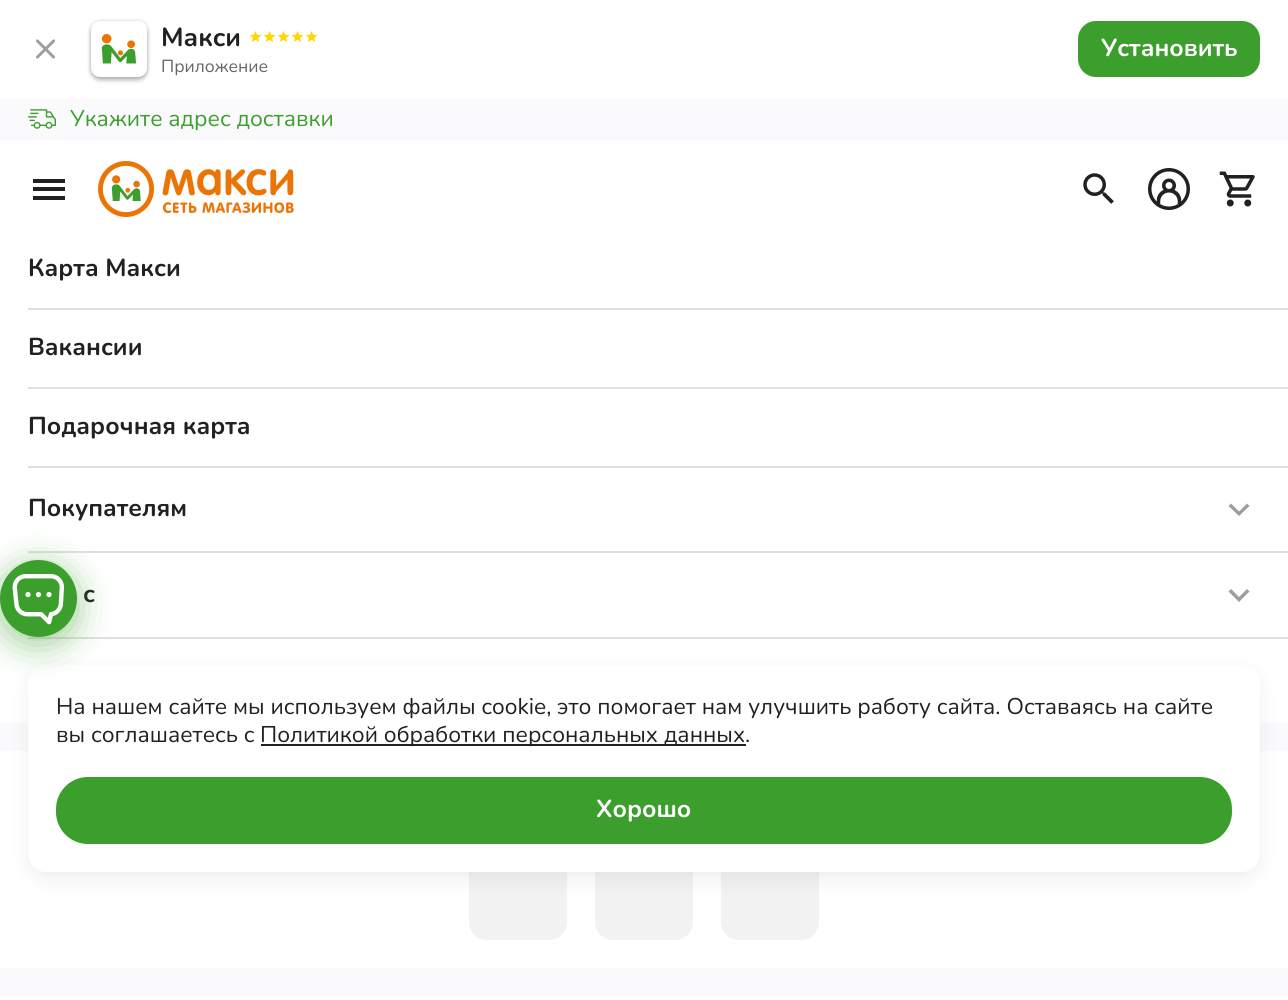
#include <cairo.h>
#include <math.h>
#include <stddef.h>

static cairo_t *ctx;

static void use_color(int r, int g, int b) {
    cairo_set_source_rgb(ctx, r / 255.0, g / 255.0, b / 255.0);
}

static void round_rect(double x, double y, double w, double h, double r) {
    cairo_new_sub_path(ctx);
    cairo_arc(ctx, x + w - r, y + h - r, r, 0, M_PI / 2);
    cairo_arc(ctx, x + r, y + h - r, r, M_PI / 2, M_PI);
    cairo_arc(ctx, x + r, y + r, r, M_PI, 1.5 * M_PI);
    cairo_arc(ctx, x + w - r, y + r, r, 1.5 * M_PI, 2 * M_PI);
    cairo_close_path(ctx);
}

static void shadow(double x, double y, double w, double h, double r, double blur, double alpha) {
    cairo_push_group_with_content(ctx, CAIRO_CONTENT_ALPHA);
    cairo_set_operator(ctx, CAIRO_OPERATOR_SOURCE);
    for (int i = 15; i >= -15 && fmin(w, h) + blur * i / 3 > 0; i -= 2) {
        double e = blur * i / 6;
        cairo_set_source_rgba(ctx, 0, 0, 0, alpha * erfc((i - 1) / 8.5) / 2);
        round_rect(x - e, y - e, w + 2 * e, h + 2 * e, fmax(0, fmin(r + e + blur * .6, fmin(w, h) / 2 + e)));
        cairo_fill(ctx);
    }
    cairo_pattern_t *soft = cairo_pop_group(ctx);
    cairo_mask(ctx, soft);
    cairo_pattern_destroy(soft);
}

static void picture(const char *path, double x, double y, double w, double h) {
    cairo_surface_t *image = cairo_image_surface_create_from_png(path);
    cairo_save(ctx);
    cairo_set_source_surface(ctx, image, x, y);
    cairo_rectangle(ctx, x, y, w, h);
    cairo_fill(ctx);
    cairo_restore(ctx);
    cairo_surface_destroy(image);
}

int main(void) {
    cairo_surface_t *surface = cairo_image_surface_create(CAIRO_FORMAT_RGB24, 1288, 1000);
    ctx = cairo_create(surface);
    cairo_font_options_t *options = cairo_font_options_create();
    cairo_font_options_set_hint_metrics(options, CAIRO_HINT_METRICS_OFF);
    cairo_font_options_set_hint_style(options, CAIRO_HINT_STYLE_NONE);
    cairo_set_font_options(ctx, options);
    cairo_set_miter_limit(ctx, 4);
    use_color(250, 250, 252);
    cairo_paint(ctx);
    use_color(255, 255, 255);
    cairo_rectangle(ctx, 0, 0, 1288, 98);
    cairo_fill(ctx);
    picture("img1.png", 36, 39, 19, 20);
    use_color(0, 0, 0);
    shadow(91, 23, 56, 56, 9, 2.5, 0.2);
    shadow(91, 25, 56, 56, 9, 2, 0.12);
    shadow(91, 21, 56, 56, 9, 2, 0.14);
    use_color(255, 255, 255);
    round_rect(91, 21, 56, 56, 9);
    cairo_fill(ctx);
    picture("img2.png", 101, 34, 36, 30);
    cairo_select_font_face(ctx, "Nunito", CAIRO_FONT_SLANT_NORMAL, CAIRO_FONT_WEIGHT_BOLD);
    cairo_set_font_size(ctx, 26);
    use_color(33, 33, 33);
    cairo_move_to(ctx, 161, 46);
    cairo_show_text(ctx, "Макси");
    picture("img3.png", 249, 31, 13, 11);
    picture("img3.png", 263, 31, 13, 11);
    picture("img3.png", 277, 31, 13, 11);
    picture("img3.png", 291, 31, 13, 11);
    picture("img3.png", 305, 31, 13, 11);
    cairo_select_font_face(ctx, "Nunito", CAIRO_FONT_SLANT_NORMAL, CAIRO_FONT_WEIGHT_NORMAL);
    cairo_set_font_size(ctx, 17.5);
    use_color(102, 102, 102);
    cairo_move_to(ctx, 161, 72);
    cairo_show_text(ctx, "Приложение");
    use_color(60, 158, 45);
    round_rect(1079, 22, 180, 54, 17);
    cairo_fill_preserve(ctx);
    cairo_stroke(ctx);
    cairo_select_font_face(ctx, "Nunito", CAIRO_FONT_SLANT_NORMAL, CAIRO_FONT_WEIGHT_BOLD);
    cairo_set_font_size(ctx, 24.5);
    use_color(255, 255, 255);
    cairo_move_to(ctx, 1101, 56);
    cairo_show_text(ctx, "Установить");
    picture("img4.png", 28, 109, 28, 20);
    cairo_select_font_face(ctx, "Nunito", CAIRO_FONT_SLANT_NORMAL, CAIRO_FONT_WEIGHT_NORMAL);
    cairo_set_font_size(ctx, 22.75);
    use_color(60, 158, 45);
    cairo_move_to(ctx, 70, 126);
    cairo_show_text(ctx, "Укажите адрес доставки");
    use_color(255, 255, 255);
    cairo_rectangle(ctx, 0, 140, 1288, 583);
    cairo_fill(ctx);
    use_color(33, 33, 33);
    cairo_rectangle(ctx, 33, 187, 32, 4);
    cairo_fill(ctx);
    cairo_rectangle(ctx, 33, 179, 32, 4);
    cairo_fill(ctx);
    cairo_rectangle(ctx, 33, 196, 32, 4);
    cairo_fill(ctx);
    picture("img5.png", 98, 161, 196, 56);
    picture("img6.png", 1083, 173, 31, 31);
    picture("img7.png", 1148, 168, 42, 42);
    picture("img8.png", 1219, 171, 36, 36);
    use_color(224, 224, 224);
    cairo_rectangle(ctx, 28, 308, 1260, 2);
    cairo_fill(ctx);
    cairo_select_font_face(ctx, "Nunito", CAIRO_FONT_SLANT_NORMAL, CAIRO_FONT_WEIGHT_BOLD);
    cairo_set_font_size(ctx, 24.5);
    use_color(33, 33, 33);
    cairo_move_to(ctx, 28, 276);
    cairo_show_text(ctx, "Карта Макси");
    use_color(224, 224, 224);
    cairo_rectangle(ctx, 28, 387, 1260, 2);
    cairo_fill(ctx);
    use_color(33, 33, 33);
    cairo_move_to(ctx, 28, 355);
    cairo_show_text(ctx, "Вакансии");
    use_color(224, 224, 224);
    cairo_rectangle(ctx, 28, 466, 1260, 2);
    cairo_fill(ctx);
    use_color(33, 33, 33);
    cairo_move_to(ctx, 28, 434);
    cairo_show_text(ctx, "Подарочная карта");
    use_color(224, 224, 224);
    cairo_rectangle(ctx, 28, 551, 1260, 2);
    cairo_fill(ctx);
    use_color(33, 33, 33);
    cairo_move_to(ctx, 28, 516);
    cairo_show_text(ctx, "Покупателям");
    use_color(158, 158, 158);
    cairo_new_path(ctx);
    cairo_move_to(ctx, 1231, 503.5);
    cairo_line_to(ctx, 1239, 511.5);
    cairo_line_to(ctx, 1247, 503.5);
    cairo_line_to(ctx, 1249.5, 506);
    cairo_line_to(ctx, 1239, 516);
    cairo_line_to(ctx, 1228.5, 506);
    cairo_close_path(ctx);
    cairo_fill(ctx);
    use_color(224, 224, 224);
    cairo_rectangle(ctx, 28, 637, 1260, 2);
    cairo_fill(ctx);
    use_color(33, 33, 33);
    cairo_move_to(ctx, 83, 602);
    cairo_show_text(ctx, "с");
    use_color(158, 158, 158);
    cairo_new_path(ctx);
    cairo_move_to(ctx, 1231, 589);
    cairo_line_to(ctx, 1239, 597);
    cairo_line_to(ctx, 1247, 589);
    cairo_line_to(ctx, 1249.5, 591.5);
    cairo_line_to(ctx, 1239, 602);
    cairo_line_to(ctx, 1228.5, 591.5);
    cairo_close_path(ctx);
    cairo_fill(ctx);
    use_color(255, 255, 255);
    cairo_rectangle(ctx, 0, 751, 1288, 217);
    cairo_fill(ctx);
    use_color(242, 242, 242);
    round_rect(469, 842, 98, 98, 18);
    cairo_fill(ctx);
    round_rect(595, 842, 98, 98, 18);
    cairo_fill(ctx);
    round_rect(721, 842, 98, 98, 18);
    cairo_fill(ctx);
    use_color(255, 255, 255);
    cairo_rectangle(ctx, 0, 996, 1288, 4);
    cairo_fill(ctx);
    use_color(0, 0, 0);
    shadow(28, 672, 1232, 207, 18, 10.5, 0.07);
    use_color(255, 255, 255);
    round_rect(28, 665, 1232, 207, 18);
    cairo_fill(ctx);
    use_color(60, 158, 45);
    shadow(0, 567, 77, 77, 38.5, 17.5, 0.5);
    use_color(60, 158, 45);
    cairo_arc(ctx, 38.5, 598.5, 38.5, 0, 2 * M_PI);
    cairo_fill(ctx);
    picture("img9.png", 12, 574, 52, 51);
    cairo_select_font_face(ctx, "Nunito", CAIRO_FONT_SLANT_NORMAL, CAIRO_FONT_WEIGHT_NORMAL);
    cairo_set_font_size(ctx, 22.75);
    use_color(33, 33, 33);
    cairo_move_to(ctx, 56, 714);
    cairo_show_text(ctx, "На нашем сайте мы используем файлы cookie, это помогает нам улучшить работу сайта. Оставаясь на сайте");
    cairo_move_to(ctx, 56, 742);
    cairo_show_text(ctx, "вы соглашаетесь с");
    cairo_rectangle(ctx, 261, 744, 485, 2);
    cairo_fill(ctx);
    cairo_move_to(ctx, 260, 742);
    cairo_show_text(ctx, "Политикой обработки персональных данных.");
    use_color(60, 158, 45);
    round_rect(57, 778, 1174, 65, 31);
    cairo_fill_preserve(ctx);
    cairo_stroke(ctx);
    cairo_select_font_face(ctx, "Nunito", CAIRO_FONT_SLANT_NORMAL, CAIRO_FONT_WEIGHT_BOLD);
    cairo_set_font_size(ctx, 24.5);
    use_color(255, 255, 255);
    cairo_move_to(ctx, 596, 817);
    cairo_show_text(ctx, "Хорошо");
    cairo_surface_write_to_png(surface, "result.png");
    cairo_font_options_destroy(options);
    cairo_destroy(ctx);
    cairo_surface_destroy(surface);
    return 0;
}
